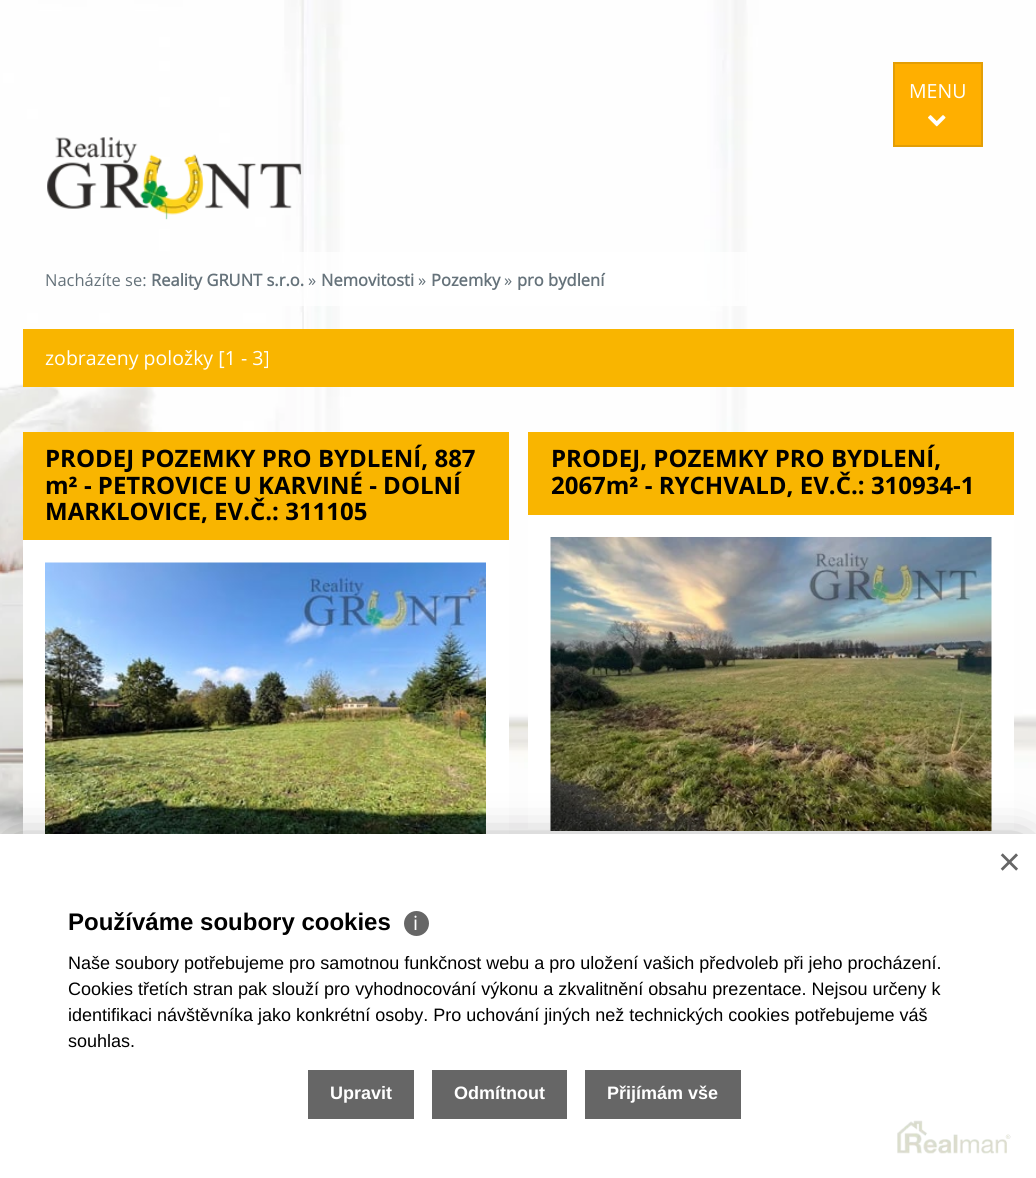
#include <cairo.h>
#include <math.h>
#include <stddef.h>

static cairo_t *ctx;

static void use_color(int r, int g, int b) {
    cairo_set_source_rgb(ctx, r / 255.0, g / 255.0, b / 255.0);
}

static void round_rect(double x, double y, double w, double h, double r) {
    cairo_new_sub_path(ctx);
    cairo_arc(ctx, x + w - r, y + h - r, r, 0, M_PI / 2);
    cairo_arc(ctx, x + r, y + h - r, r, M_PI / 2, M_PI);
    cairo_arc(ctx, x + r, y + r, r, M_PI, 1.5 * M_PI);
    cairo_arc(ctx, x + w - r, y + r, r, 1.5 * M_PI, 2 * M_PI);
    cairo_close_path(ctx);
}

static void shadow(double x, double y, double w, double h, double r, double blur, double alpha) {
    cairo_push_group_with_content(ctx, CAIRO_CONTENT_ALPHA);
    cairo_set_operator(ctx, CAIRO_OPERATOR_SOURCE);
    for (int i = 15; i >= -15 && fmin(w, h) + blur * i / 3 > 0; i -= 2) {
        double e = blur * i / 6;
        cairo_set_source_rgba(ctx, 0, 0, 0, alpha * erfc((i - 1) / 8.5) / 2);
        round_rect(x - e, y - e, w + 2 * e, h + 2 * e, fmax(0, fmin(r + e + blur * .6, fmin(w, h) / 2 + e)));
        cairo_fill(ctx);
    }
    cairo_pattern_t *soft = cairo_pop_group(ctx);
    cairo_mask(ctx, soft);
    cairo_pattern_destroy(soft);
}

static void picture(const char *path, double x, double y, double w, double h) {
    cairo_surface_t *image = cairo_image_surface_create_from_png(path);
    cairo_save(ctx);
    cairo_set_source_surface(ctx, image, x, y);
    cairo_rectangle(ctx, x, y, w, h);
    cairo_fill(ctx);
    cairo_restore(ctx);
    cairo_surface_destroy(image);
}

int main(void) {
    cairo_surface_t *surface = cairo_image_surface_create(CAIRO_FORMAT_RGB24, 1036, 1178);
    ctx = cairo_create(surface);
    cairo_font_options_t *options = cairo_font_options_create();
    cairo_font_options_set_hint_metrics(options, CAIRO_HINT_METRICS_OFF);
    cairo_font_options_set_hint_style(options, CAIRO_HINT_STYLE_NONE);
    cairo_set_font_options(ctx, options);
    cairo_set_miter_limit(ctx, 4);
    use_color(255, 255, 255);
    cairo_paint(ctx);
    picture("img1.png", 0, 0, 1036, 834);
    use_color(255, 175, 0);
    cairo_rectangle(ctx, 894, 63, 88, 83);
    cairo_fill_preserve(ctx);
    use_color(227, 158, 6);
    cairo_stroke(ctx);
    cairo_select_font_face(ctx, "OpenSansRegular", CAIRO_FONT_SLANT_NORMAL, CAIRO_FONT_WEIGHT_NORMAL);
    cairo_set_font_size(ctx, 19.5);
    use_color(255, 255, 255);
    cairo_move_to(ctx, 909, 98);
    cairo_show_text(ctx, "MENU");
    picture("img2.png", 928, 115, 18, 12);
    picture("img3.png", 47, 137, 255, 83);
    cairo_set_source_rgba(ctx, 1, 1, 1, 0.7);
    cairo_rectangle(ctx, 282, 252, 465, 54);
    cairo_fill(ctx);
    cairo_set_font_size(ctx, 16.5);
    use_color(101, 114, 122);
    cairo_move_to(ctx, 45, 286);
    cairo_show_text(ctx, "Nacházíte se:");
    cairo_select_font_face(ctx, "OpenSansRegular", CAIRO_FONT_SLANT_NORMAL, CAIRO_FONT_WEIGHT_BOLD);
    cairo_move_to(ctx, 151, 286);
    cairo_show_text(ctx, "Reality GRUNT s.r.o.");
    cairo_select_font_face(ctx, "OpenSansRegular", CAIRO_FONT_SLANT_NORMAL, CAIRO_FONT_WEIGHT_NORMAL);
    cairo_move_to(ctx, 308, 286);
    cairo_show_text(ctx, "»");
    cairo_select_font_face(ctx, "OpenSansRegular", CAIRO_FONT_SLANT_NORMAL, CAIRO_FONT_WEIGHT_BOLD);
    cairo_move_to(ctx, 321, 286);
    cairo_show_text(ctx, "Nemovitosti");
    cairo_select_font_face(ctx, "OpenSansRegular", CAIRO_FONT_SLANT_NORMAL, CAIRO_FONT_WEIGHT_NORMAL);
    cairo_move_to(ctx, 418, 286);
    cairo_show_text(ctx, "»");
    cairo_select_font_face(ctx, "OpenSansRegular", CAIRO_FONT_SLANT_NORMAL, CAIRO_FONT_WEIGHT_BOLD);
    cairo_move_to(ctx, 431, 286);
    cairo_show_text(ctx, "Pozemky");
    cairo_select_font_face(ctx, "OpenSansRegular", CAIRO_FONT_SLANT_NORMAL, CAIRO_FONT_WEIGHT_NORMAL);
    cairo_move_to(ctx, 504, 286);
    cairo_show_text(ctx, "»");
    cairo_select_font_face(ctx, "OpenSansRegular", CAIRO_FONT_SLANT_NORMAL, CAIRO_FONT_WEIGHT_BOLD);
    cairo_move_to(ctx, 517, 286);
    cairo_show_text(ctx, "pro bydlení");
    use_color(249, 181, 0);
    cairo_rectangle(ctx, 23, 329, 991, 58);
    cairo_fill(ctx);
    cairo_select_font_face(ctx, "OpenSansRegular", CAIRO_FONT_SLANT_NORMAL, CAIRO_FONT_WEIGHT_NORMAL);
    cairo_set_font_size(ctx, 19.5);
    use_color(255, 255, 255);
    cairo_move_to(ctx, 45, 365);
    cairo_show_text(ctx, "zobrazeny položky [1 - 3]");
    cairo_rectangle(ctx, 23, 540, 486, 294);
    cairo_fill(ctx);
    use_color(249, 181, 0);
    cairo_rectangle(ctx, 23, 432, 486, 108);
    cairo_fill(ctx);
    cairo_select_font_face(ctx, "Open Sans", CAIRO_FONT_SLANT_NORMAL, CAIRO_FONT_WEIGHT_BOLD);
    cairo_set_font_size(ctx, 24);
    use_color(0, 0, 0);
    cairo_move_to(ctx, 45, 467);
    cairo_show_text(ctx, "PRODEJ POZEMKY PRO BYDLENÍ, 887");
    cairo_move_to(ctx, 45, 494);
    cairo_show_text(ctx, "m² - PETROVICE U KARVINÉ - DOLNÍ");
    cairo_move_to(ctx, 45, 520);
    cairo_show_text(ctx, "MARKLOVICE, EV.Č.: 311105");
    picture("img4.png", 45, 562, 441, 272);
    use_color(255, 255, 255);
    cairo_rectangle(ctx, 528, 515, 486, 314);
    cairo_fill(ctx);
    use_color(249, 181, 0);
    cairo_rectangle(ctx, 528, 432, 486, 83);
    cairo_fill(ctx);
    use_color(0, 0, 0);
    cairo_move_to(ctx, 551, 467);
    cairo_show_text(ctx, "PRODEJ, POZEMKY PRO BYDLENÍ,");
    cairo_move_to(ctx, 551, 494);
    cairo_show_text(ctx, "2067m² - RYCHVALD, EV.Č.: 310934-1");
    picture("img5.png", 550, 537, 442, 294);
    use_color(0, 0, 0);
    shadow(15, 849, 1007, 315, 0, 22.5, 0.5);
    use_color(255, 255, 255);
    cairo_rectangle(ctx, 0, 834, 1036, 344);
    cairo_fill(ctx);
    picture("img6.png", 897, 1120, 114, 34);
    cairo_select_font_face(ctx, "Liberation Sans", CAIRO_FONT_SLANT_NORMAL, CAIRO_FONT_WEIGHT_NORMAL);
    cairo_set_font_size(ctx, 39);
    use_color(102, 102, 102);
    cairo_move_to(ctx, 998, 875);
    cairo_show_text(ctx, "×");
    cairo_select_font_face(ctx, "Liberation Sans", CAIRO_FONT_SLANT_NORMAL, CAIRO_FONT_WEIGHT_BOLD);
    cairo_set_font_size(ctx, 24);
    use_color(0, 0, 0);
    cairo_move_to(ctx, 68, 930);
    cairo_show_text(ctx, "Používáme soubory cookies");
    use_color(102, 102, 102);
    cairo_new_path(ctx);
    cairo_arc(ctx, 416.5, 923.5, 12.5, 0, 2 * M_PI);
    cairo_fill(ctx);
    cairo_select_font_face(ctx, "Noto Sans", CAIRO_FONT_SLANT_NORMAL, CAIRO_FONT_WEIGHT_NORMAL);
    cairo_set_font_size(ctx, 19.5);
    use_color(255, 255, 255);
    cairo_move_to(ctx, 413, 930);
    cairo_show_text(ctx, "ℹ");
    cairo_select_font_face(ctx, "Liberation Sans", CAIRO_FONT_SLANT_NORMAL, CAIRO_FONT_WEIGHT_NORMAL);
    cairo_set_font_size(ctx, 18);
    use_color(0, 0, 0);
    cairo_move_to(ctx, 68, 969);
    cairo_show_text(ctx, "Naše soubory potřebujeme pro samotnou funkčnost webu a pro uložení vašich předvoleb při jeho procházení.");
    cairo_move_to(ctx, 68, 995);
    cairo_show_text(ctx, "Cookies třetích stran pak slouží pro vyhodnocování výkonu a zkvalitnění obsahu prezentace. Nejsou určeny k");
    cairo_move_to(ctx, 68, 1021);
    cairo_show_text(ctx, "identifikaci návštěvníka jako konkrétní osoby. Pro uchování jiných než technických cookies potřebujeme váš");
    cairo_move_to(ctx, 68, 1047);
    cairo_show_text(ctx, "souhlas.");
    use_color(102, 102, 102);
    cairo_rectangle(ctx, 308, 1070, 106, 49);
    cairo_fill(ctx);
    cairo_select_font_face(ctx, "Liberation Sans", CAIRO_FONT_SLANT_NORMAL, CAIRO_FONT_WEIGHT_BOLD);
    use_color(255, 255, 255);
    cairo_move_to(ctx, 330, 1099);
    cairo_show_text(ctx, "Upravit");
    use_color(102, 102, 102);
    cairo_rectangle(ctx, 432, 1070, 135, 49);
    cairo_fill(ctx);
    use_color(255, 255, 255);
    cairo_move_to(ctx, 454, 1099);
    cairo_show_text(ctx, "Odmítnout");
    use_color(102, 102, 102);
    cairo_rectangle(ctx, 585, 1070, 156, 49);
    cairo_fill(ctx);
    use_color(255, 255, 255);
    cairo_move_to(ctx, 607, 1099);
    cairo_show_text(ctx, "Přijímám vše");
    cairo_surface_write_to_png(surface, "result.png");
    cairo_font_options_destroy(options);
    cairo_destroy(ctx);
    cairo_surface_destroy(surface);
    return 0;
}
